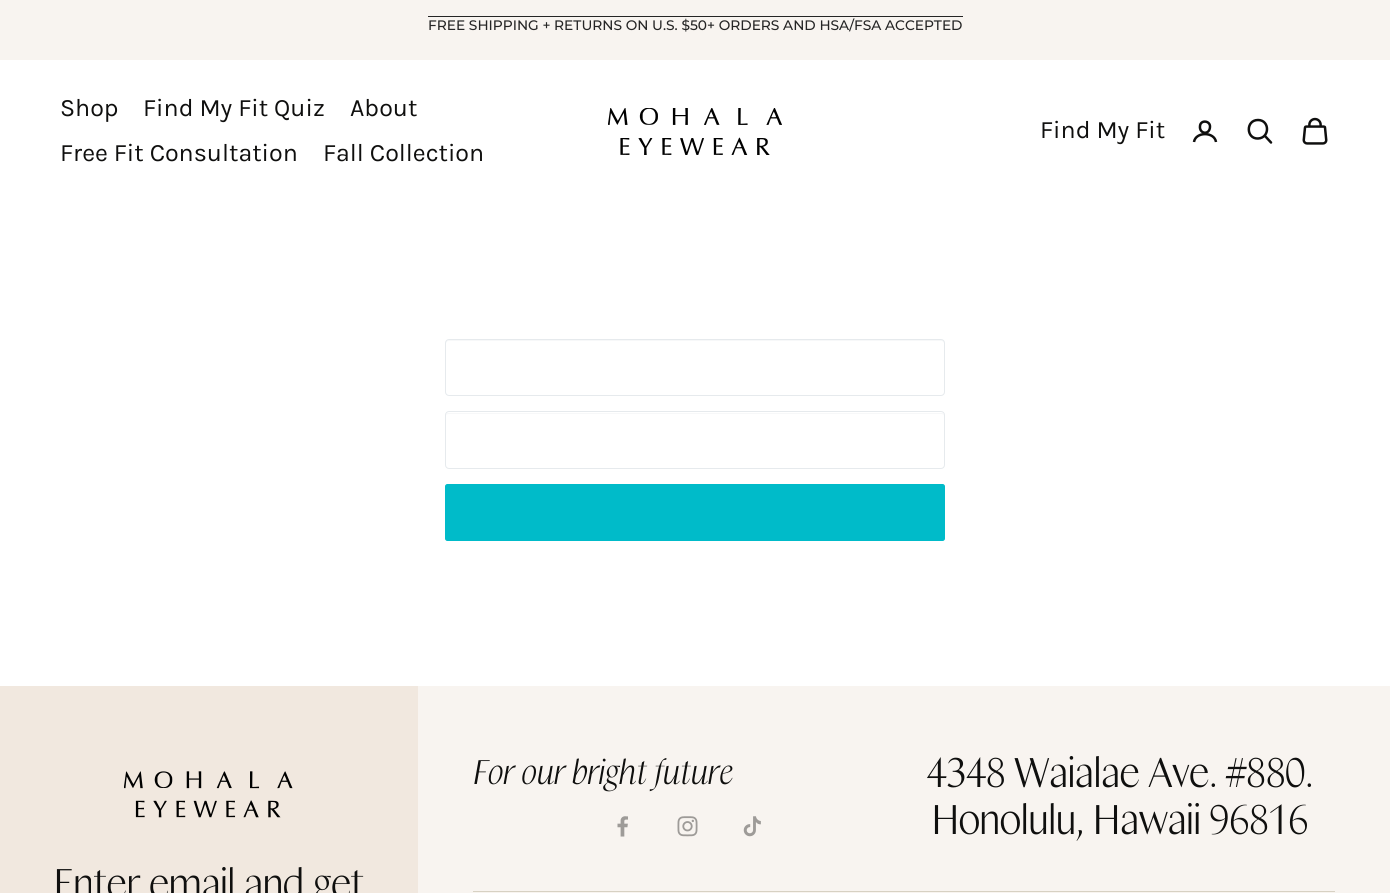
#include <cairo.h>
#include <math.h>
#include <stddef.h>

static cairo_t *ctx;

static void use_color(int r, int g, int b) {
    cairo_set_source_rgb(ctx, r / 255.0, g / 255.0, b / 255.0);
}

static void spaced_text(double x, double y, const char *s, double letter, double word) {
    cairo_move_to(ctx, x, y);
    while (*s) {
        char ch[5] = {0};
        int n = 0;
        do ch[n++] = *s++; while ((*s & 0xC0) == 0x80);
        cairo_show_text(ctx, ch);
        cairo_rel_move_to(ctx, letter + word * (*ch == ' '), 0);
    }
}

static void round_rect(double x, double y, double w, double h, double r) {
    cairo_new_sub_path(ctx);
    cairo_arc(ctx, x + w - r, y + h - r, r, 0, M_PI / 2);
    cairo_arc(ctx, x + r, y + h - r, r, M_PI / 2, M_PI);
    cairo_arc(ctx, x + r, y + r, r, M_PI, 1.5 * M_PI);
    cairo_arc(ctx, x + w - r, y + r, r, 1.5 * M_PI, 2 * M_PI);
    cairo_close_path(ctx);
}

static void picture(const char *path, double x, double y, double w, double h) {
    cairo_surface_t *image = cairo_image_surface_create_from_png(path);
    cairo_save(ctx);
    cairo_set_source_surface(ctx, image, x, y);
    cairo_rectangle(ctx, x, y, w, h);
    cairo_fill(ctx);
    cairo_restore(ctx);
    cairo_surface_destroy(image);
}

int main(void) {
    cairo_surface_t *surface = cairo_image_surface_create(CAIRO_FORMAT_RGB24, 1390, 893);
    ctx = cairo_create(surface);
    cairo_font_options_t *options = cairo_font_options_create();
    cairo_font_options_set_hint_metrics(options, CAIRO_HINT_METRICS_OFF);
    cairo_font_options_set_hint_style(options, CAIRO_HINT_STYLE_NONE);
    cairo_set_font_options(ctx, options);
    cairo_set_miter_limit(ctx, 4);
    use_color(248, 244, 240);
    cairo_paint(ctx);
    cairo_select_font_face(ctx, "Montserrat Medium", CAIRO_FONT_SLANT_NORMAL, CAIRO_FONT_WEIGHT_NORMAL);
    cairo_set_font_size(ctx, 13.75);
    use_color(37, 37, 37);
    cairo_move_to(ctx, 428, 30);
    cairo_show_text(ctx, "FREE SHIPPING + RETURNS ON U.S. $50+ ORDERS AND HSA/FSA ACCEPTED");
    cairo_rectangle(ctx, 428, 16, 535, 1);
    cairo_fill(ctx);
    use_color(255, 255, 255);
    cairo_rectangle(ctx, 0, 60, 1390, 626);
    cairo_fill(ctx);
    use_color(247, 248, 249);
    cairo_new_path(ctx);
    cairo_move_to(ctx, 449, 341);
    cairo_line_to(ctx, 941, 341);
    cairo_curve_to(ctx, 943, 341, 944, 342, 944, 344);
    cairo_curve_to(ctx, 944, 342, 944, 340, 942, 340);
    cairo_line_to(ctx, 448, 340);
    cairo_line_to(ctx, 446, 341);
    cairo_line_to(ctx, 446, 344);
    cairo_curve_to(ctx, 446, 342, 447, 341, 449, 341);
    cairo_close_path(ctx);
    cairo_fill(ctx);
    round_rect(445.5, 339.5, 499, 56, 3.5);
    use_color(230, 234, 237);
    cairo_set_line_width(ctx, 1);
    cairo_stroke(ctx);
    use_color(247, 248, 249);
    cairo_new_path(ctx);
    cairo_move_to(ctx, 449, 414);
    cairo_line_to(ctx, 941, 414);
    cairo_curve_to(ctx, 943, 414, 944, 415, 944, 416);
    cairo_curve_to(ctx, 944, 414, 943, 413, 942, 413);
    cairo_line_to(ctx, 448, 413);
    cairo_curve_to(ctx, 447, 413, 446, 414, 446, 416);
    cairo_curve_to(ctx, 446, 415, 447, 414, 449, 414);
    cairo_close_path(ctx);
    cairo_fill(ctx);
    round_rect(445.5, 411.5, 499, 57, 3.5);
    use_color(230, 234, 237);
    cairo_stroke(ctx);
    use_color(0, 187, 201);
    round_rect(445.5, 484.5, 499, 56, 2);
    cairo_fill_preserve(ctx);
    cairo_stroke(ctx);
    cairo_select_font_face(ctx, "Karla", CAIRO_FONT_SLANT_NORMAL, CAIRO_FONT_WEIGHT_NORMAL);
    cairo_set_font_size(ctx, 25);
    use_color(15, 15, 14);
    cairo_move_to(ctx, 60, 116);
    cairo_show_text(ctx, "Shop");
    cairo_move_to(ctx, 143, 116);
    cairo_show_text(ctx, "Find My Fit Quiz");
    cairo_move_to(ctx, 350, 116);
    cairo_show_text(ctx, "About");
    cairo_move_to(ctx, 60, 161);
    cairo_show_text(ctx, "Free Fit Consultation");
    cairo_move_to(ctx, 323, 161);
    cairo_show_text(ctx, "Fall Collection");
    picture("img1.png", 608, 108, 174, 47);
    cairo_move_to(ctx, 1040, 138);
    cairo_show_text(ctx, "Find My Fit");
    cairo_new_path(ctx);
    cairo_move_to(ctx, 1210, 127);
    cairo_curve_to(ctx, 1209.5, 135.5, 1199, 134, 1200, 126);
    cairo_curve_to(ctx, 1200.5, 119.5, 1210.5, 120.5, 1210, 127);
    cairo_close_path(ctx);
    cairo_set_line_width(ctx, 2.5);
    cairo_set_line_cap(ctx, CAIRO_LINE_CAP_ROUND);
    cairo_set_line_join(ctx, CAIRO_LINE_JOIN_ROUND);
    cairo_stroke(ctx);
    cairo_new_path(ctx);
    cairo_move_to(ctx, 1194, 142);
    cairo_curve_to(ctx, 1195.5, 131.5, 1214.5, 131.5, 1216, 142);
    cairo_set_line_cap(ctx, CAIRO_LINE_CAP_BUTT);
    cairo_set_line_join(ctx, CAIRO_LINE_JOIN_MITER);
    cairo_stroke(ctx);
    cairo_new_path(ctx);
    cairo_move_to(ctx, 1258, 120);
    cairo_curve_to(ctx, 1245.5, 120, 1246, 139, 1258, 138.5);
    cairo_curve_to(ctx, 1270, 138, 1270, 120, 1258, 120);
    cairo_close_path(ctx);
    cairo_stroke(ctx);
    cairo_new_path(ctx);
    cairo_move_to(ctx, 1265, 136);
    cairo_line_to(ctx, 1271, 142.5);
    cairo_set_line_cap(ctx, CAIRO_LINE_CAP_ROUND);
    cairo_stroke(ctx);
    picture("img2.png", 1302, 117, 26, 28);
    use_color(215, 209, 195);
    cairo_rectangle(ctx, 473, 891, 862, 1);
    cairo_fill(ctx);
    cairo_select_font_face(ctx, "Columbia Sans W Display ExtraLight", CAIRO_FONT_SLANT_ITALIC, CAIRO_FONT_WEIGHT_NORMAL);
    cairo_set_font_size(ctx, 35);
    use_color(15, 15, 14);
    spaced_text(473, 784, "For our bright future", -0.9, 0);
    picture("img3.png", 617, 816, 11, 21);
    picture("img4.png", 677, 816, 21, 21);
    picture("img5.png", 743, 816, 18, 21);
    cairo_select_font_face(ctx, "Columbia Sans W Display ExtraLight", CAIRO_FONT_SLANT_NORMAL, CAIRO_FONT_WEIGHT_NORMAL);
    cairo_set_font_size(ctx, 42.5);
    spaced_text(926, 787, "4348 Waialae Ave. #880.", -1.8, 0);
    spaced_text(931, 834, "Honolulu, Hawaii 96816", -1.8, 0);
    use_color(241, 232, 223);
    cairo_rectangle(ctx, 0, 686, 418, 207);
    cairo_fill(ctx);
    picture("img6.png", 124, 771, 169, 47);
    use_color(15, 15, 14);
    spaced_text(53, 898, "Enter email and get", -1.8, 0);
    cairo_surface_write_to_png(surface, "result.png");
    cairo_font_options_destroy(options);
    cairo_destroy(ctx);
    cairo_surface_destroy(surface);
    return 0;
}
